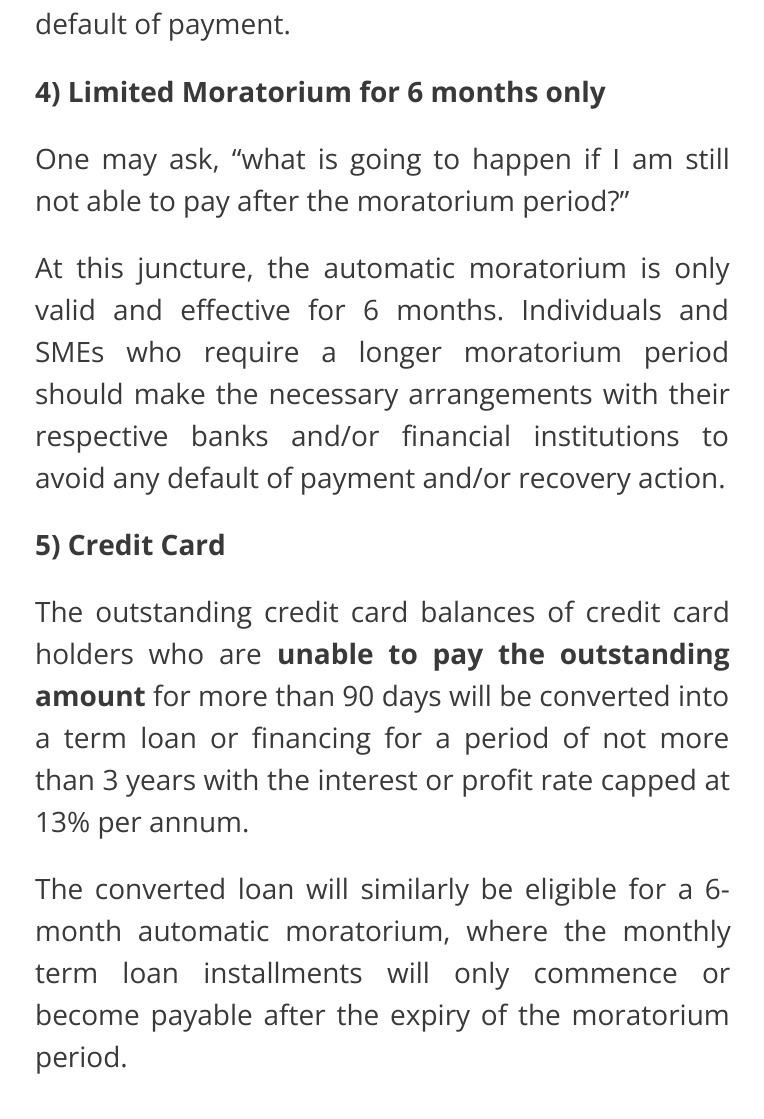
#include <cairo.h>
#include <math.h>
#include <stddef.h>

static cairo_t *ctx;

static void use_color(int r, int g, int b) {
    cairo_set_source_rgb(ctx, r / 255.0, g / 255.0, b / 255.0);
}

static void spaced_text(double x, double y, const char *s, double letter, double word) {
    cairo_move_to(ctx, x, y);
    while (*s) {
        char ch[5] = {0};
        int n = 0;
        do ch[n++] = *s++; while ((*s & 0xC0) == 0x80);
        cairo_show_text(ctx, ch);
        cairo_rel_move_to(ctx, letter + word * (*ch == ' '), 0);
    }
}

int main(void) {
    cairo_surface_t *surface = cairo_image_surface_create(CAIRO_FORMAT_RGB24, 764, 1119);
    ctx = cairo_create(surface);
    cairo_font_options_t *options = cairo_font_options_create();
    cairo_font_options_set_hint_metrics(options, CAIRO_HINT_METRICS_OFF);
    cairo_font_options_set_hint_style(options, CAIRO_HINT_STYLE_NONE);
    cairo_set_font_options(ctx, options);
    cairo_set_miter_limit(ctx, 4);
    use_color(255, 255, 255);
    cairo_paint(ctx);
    cairo_select_font_face(ctx, "Open Sans", CAIRO_FONT_SLANT_NORMAL, CAIRO_FONT_WEIGHT_NORMAL);
    cairo_set_font_size(ctx, 28);
    use_color(57, 57, 57);
    cairo_move_to(ctx, 35, 34);
    cairo_show_text(ctx, "default of payment.");
    cairo_select_font_face(ctx, "Open Sans", CAIRO_FONT_SLANT_NORMAL, CAIRO_FONT_WEIGHT_BOLD);
    cairo_move_to(ctx, 35, 102);
    cairo_show_text(ctx, "4) Limited Moratorium for 6 months only");
    cairo_select_font_face(ctx, "Open Sans", CAIRO_FONT_SLANT_NORMAL, CAIRO_FONT_WEIGHT_NORMAL);
    spaced_text(35, 169, "One may ask, “what is going to happen if I am still", 0, 4.6);
    cairo_move_to(ctx, 35, 211);
    cairo_show_text(ctx, "not able to pay after the moratorium period?”");
    spaced_text(35, 278, "At this juncture, the automatic moratorium is only", 0, 6.25);
    spaced_text(35, 320, "valid and effective for 6 months. Individuals and", 0, 10);
    spaced_text(35, 362, "SMEs who require a longer moratorium period", 0, 14.5);
    spaced_text(35, 404, "should make the necessary arrangements with their", 0, 2.75);
    spaced_text(35, 446, "respective banks and/or financial institutions to", 0, 15);
    cairo_move_to(ctx, 35, 488);
    cairo_show_text(ctx, "avoid any default of payment and/or recovery action.");
    cairo_select_font_face(ctx, "Open Sans", CAIRO_FONT_SLANT_NORMAL, CAIRO_FONT_WEIGHT_BOLD);
    cairo_move_to(ctx, 35, 555);
    cairo_show_text(ctx, "5) Credit Card");
    cairo_select_font_face(ctx, "Open Sans", CAIRO_FONT_SLANT_NORMAL, CAIRO_FONT_WEIGHT_NORMAL);
    spaced_text(35, 622, "The outstanding credit card balances of credit card", 0, 4.75);
    spaced_text(35, 664, "holders who are", 0, 7.5);
    cairo_select_font_face(ctx, "Open Sans", CAIRO_FONT_SLANT_NORMAL, CAIRO_FONT_WEIGHT_BOLD);
    spaced_text(277, 664, "unable to pay the outstanding", 0, 7.5);
    cairo_move_to(ctx, 35, 706);
    cairo_show_text(ctx, "amount");
    cairo_select_font_face(ctx, "Open Sans", CAIRO_FONT_SLANT_NORMAL, CAIRO_FONT_WEIGHT_NORMAL);
    cairo_move_to(ctx, 153, 706);
    cairo_show_text(ctx, "for more than 90 days will be converted into");
    spaced_text(35, 748, "a term loan or financing for a period of not more", 0, 6);
    spaced_text(35, 790, "than 3 years with the interest or profit rate capped at", 0, 0.25);
    cairo_move_to(ctx, 35, 832);
    cairo_show_text(ctx, "13% per annum.");
    spaced_text(35, 899, "The converted loan will similarly be eligible for a 6-", 0, 4.25);
    spaced_text(35, 941, "month automatic moratorium, where the monthly", 0, 8.5);
    spaced_text(35, 983, "term loan installments will only commence or", 0, 17);
    spaced_text(35, 1025, "become payable after the expiry of the moratorium", 0, 3.5);
    cairo_move_to(ctx, 35, 1067);
    cairo_show_text(ctx, "period.");
    cairo_surface_write_to_png(surface, "result.png");
    cairo_font_options_destroy(options);
    cairo_destroy(ctx);
    cairo_surface_destroy(surface);
    return 0;
}
